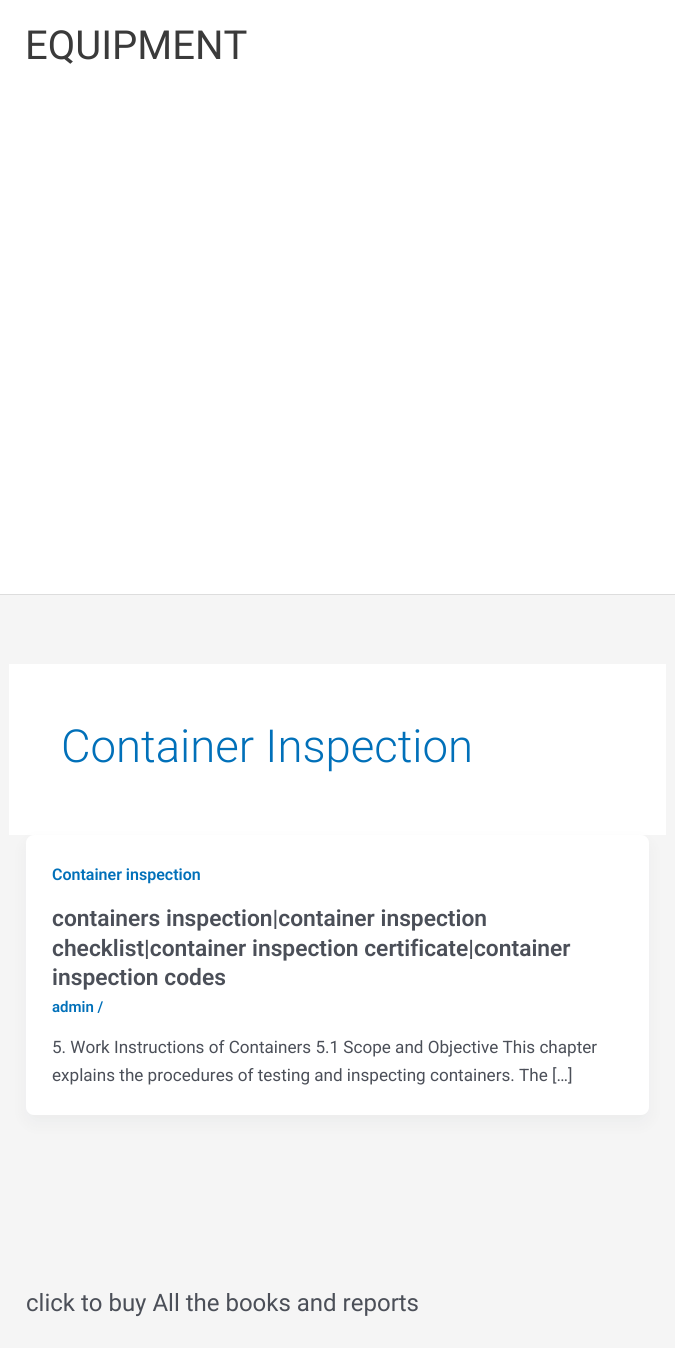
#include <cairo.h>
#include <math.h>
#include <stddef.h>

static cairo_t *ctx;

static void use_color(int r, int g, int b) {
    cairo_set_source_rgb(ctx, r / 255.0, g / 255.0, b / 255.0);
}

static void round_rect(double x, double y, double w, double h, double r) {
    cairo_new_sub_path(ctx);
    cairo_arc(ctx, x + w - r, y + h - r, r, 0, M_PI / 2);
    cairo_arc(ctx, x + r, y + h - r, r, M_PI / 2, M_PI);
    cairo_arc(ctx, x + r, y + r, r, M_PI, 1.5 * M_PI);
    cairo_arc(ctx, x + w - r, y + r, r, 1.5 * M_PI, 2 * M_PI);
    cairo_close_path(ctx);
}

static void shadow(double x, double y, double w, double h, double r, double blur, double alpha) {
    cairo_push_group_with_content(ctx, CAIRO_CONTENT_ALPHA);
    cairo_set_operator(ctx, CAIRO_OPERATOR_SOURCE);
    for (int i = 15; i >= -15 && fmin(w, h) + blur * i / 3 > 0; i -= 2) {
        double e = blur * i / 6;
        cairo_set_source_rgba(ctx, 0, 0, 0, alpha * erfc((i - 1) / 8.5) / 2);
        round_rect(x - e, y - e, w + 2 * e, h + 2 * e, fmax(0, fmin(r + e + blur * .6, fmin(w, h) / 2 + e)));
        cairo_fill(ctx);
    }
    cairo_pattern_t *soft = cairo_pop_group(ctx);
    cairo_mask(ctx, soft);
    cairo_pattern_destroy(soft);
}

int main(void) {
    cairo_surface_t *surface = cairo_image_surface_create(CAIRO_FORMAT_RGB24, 675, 1348);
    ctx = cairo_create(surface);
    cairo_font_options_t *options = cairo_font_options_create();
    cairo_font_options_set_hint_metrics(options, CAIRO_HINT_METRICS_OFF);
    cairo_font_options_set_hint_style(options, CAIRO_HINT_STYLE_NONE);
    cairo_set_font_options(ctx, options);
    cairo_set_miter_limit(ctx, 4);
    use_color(245, 245, 245);
    cairo_paint(ctx);
    use_color(255, 255, 255);
    cairo_rectangle(ctx, 0, 0, 675, 594);
    cairo_fill(ctx);
    use_color(221, 221, 221);
    cairo_rectangle(ctx, 0, 594, 675, 1);
    cairo_fill(ctx);
    cairo_select_font_face(ctx, "Roboto", CAIRO_FONT_SLANT_NORMAL, CAIRO_FONT_WEIGHT_NORMAL);
    cairo_set_font_size(ctx, 40);
    use_color(58, 58, 58);
    cairo_move_to(ctx, 25, 59);
    cairo_show_text(ctx, "EQUIPMENT");
    use_color(255, 255, 255);
    cairo_rectangle(ctx, 9, 664, 657, 171);
    cairo_fill(ctx);
    cairo_select_font_face(ctx, "Roboto Light", CAIRO_FONT_SLANT_NORMAL, CAIRO_FONT_WEIGHT_NORMAL);
    cairo_set_font_size(ctx, 45.5);
    use_color(1, 112, 185);
    cairo_move_to(ctx, 61, 762);
    cairo_show_text(ctx, "Container Inspection");
    use_color(16, 24, 40);
    shadow(29, 845, 617, 275, 5, 9.5, 0.05);
    use_color(255, 255, 255);
    round_rect(26, 835, 623, 280, 8);
    cairo_fill(ctx);
    cairo_select_font_face(ctx, "Roboto SemiBold", CAIRO_FONT_SLANT_NORMAL, CAIRO_FONT_WEIGHT_NORMAL);
    cairo_set_font_size(ctx, 16);
    use_color(1, 112, 185);
    cairo_move_to(ctx, 52, 880);
    cairo_show_text(ctx, "Container inspection");
    cairo_set_font_size(ctx, 22.8);
    use_color(75, 79, 88);
    cairo_move_to(ctx, 52, 926);
    cairo_show_text(ctx, "containers inspection|container inspection");
    cairo_move_to(ctx, 52, 956);
    cairo_show_text(ctx, "checklist|container inspection certificate|container");
    cairo_move_to(ctx, 52, 985);
    cairo_show_text(ctx, "inspection codes");
    cairo_set_font_size(ctx, 15);
    use_color(1, 112, 185);
    cairo_move_to(ctx, 52, 1012);
    cairo_show_text(ctx, "admin /");
    cairo_select_font_face(ctx, "Roboto", CAIRO_FONT_SLANT_NORMAL, CAIRO_FONT_WEIGHT_NORMAL);
    cairo_set_font_size(ctx, 17.1);
    use_color(75, 79, 88);
    cairo_move_to(ctx, 52, 1053);
    cairo_show_text(ctx, "5. Work Instructions of Containers 5.1 Scope and Objective This chapter");
    cairo_move_to(ctx, 52, 1081);
    cairo_show_text(ctx, "explains the procedures of testing and inspecting containers. The […]");
    cairo_set_font_size(ctx, 24);
    cairo_move_to(ctx, 26, 1311);
    cairo_show_text(ctx, "click to buy All the books and reports");
    cairo_surface_write_to_png(surface, "result.png");
    cairo_font_options_destroy(options);
    cairo_destroy(ctx);
    cairo_surface_destroy(surface);
    return 0;
}
